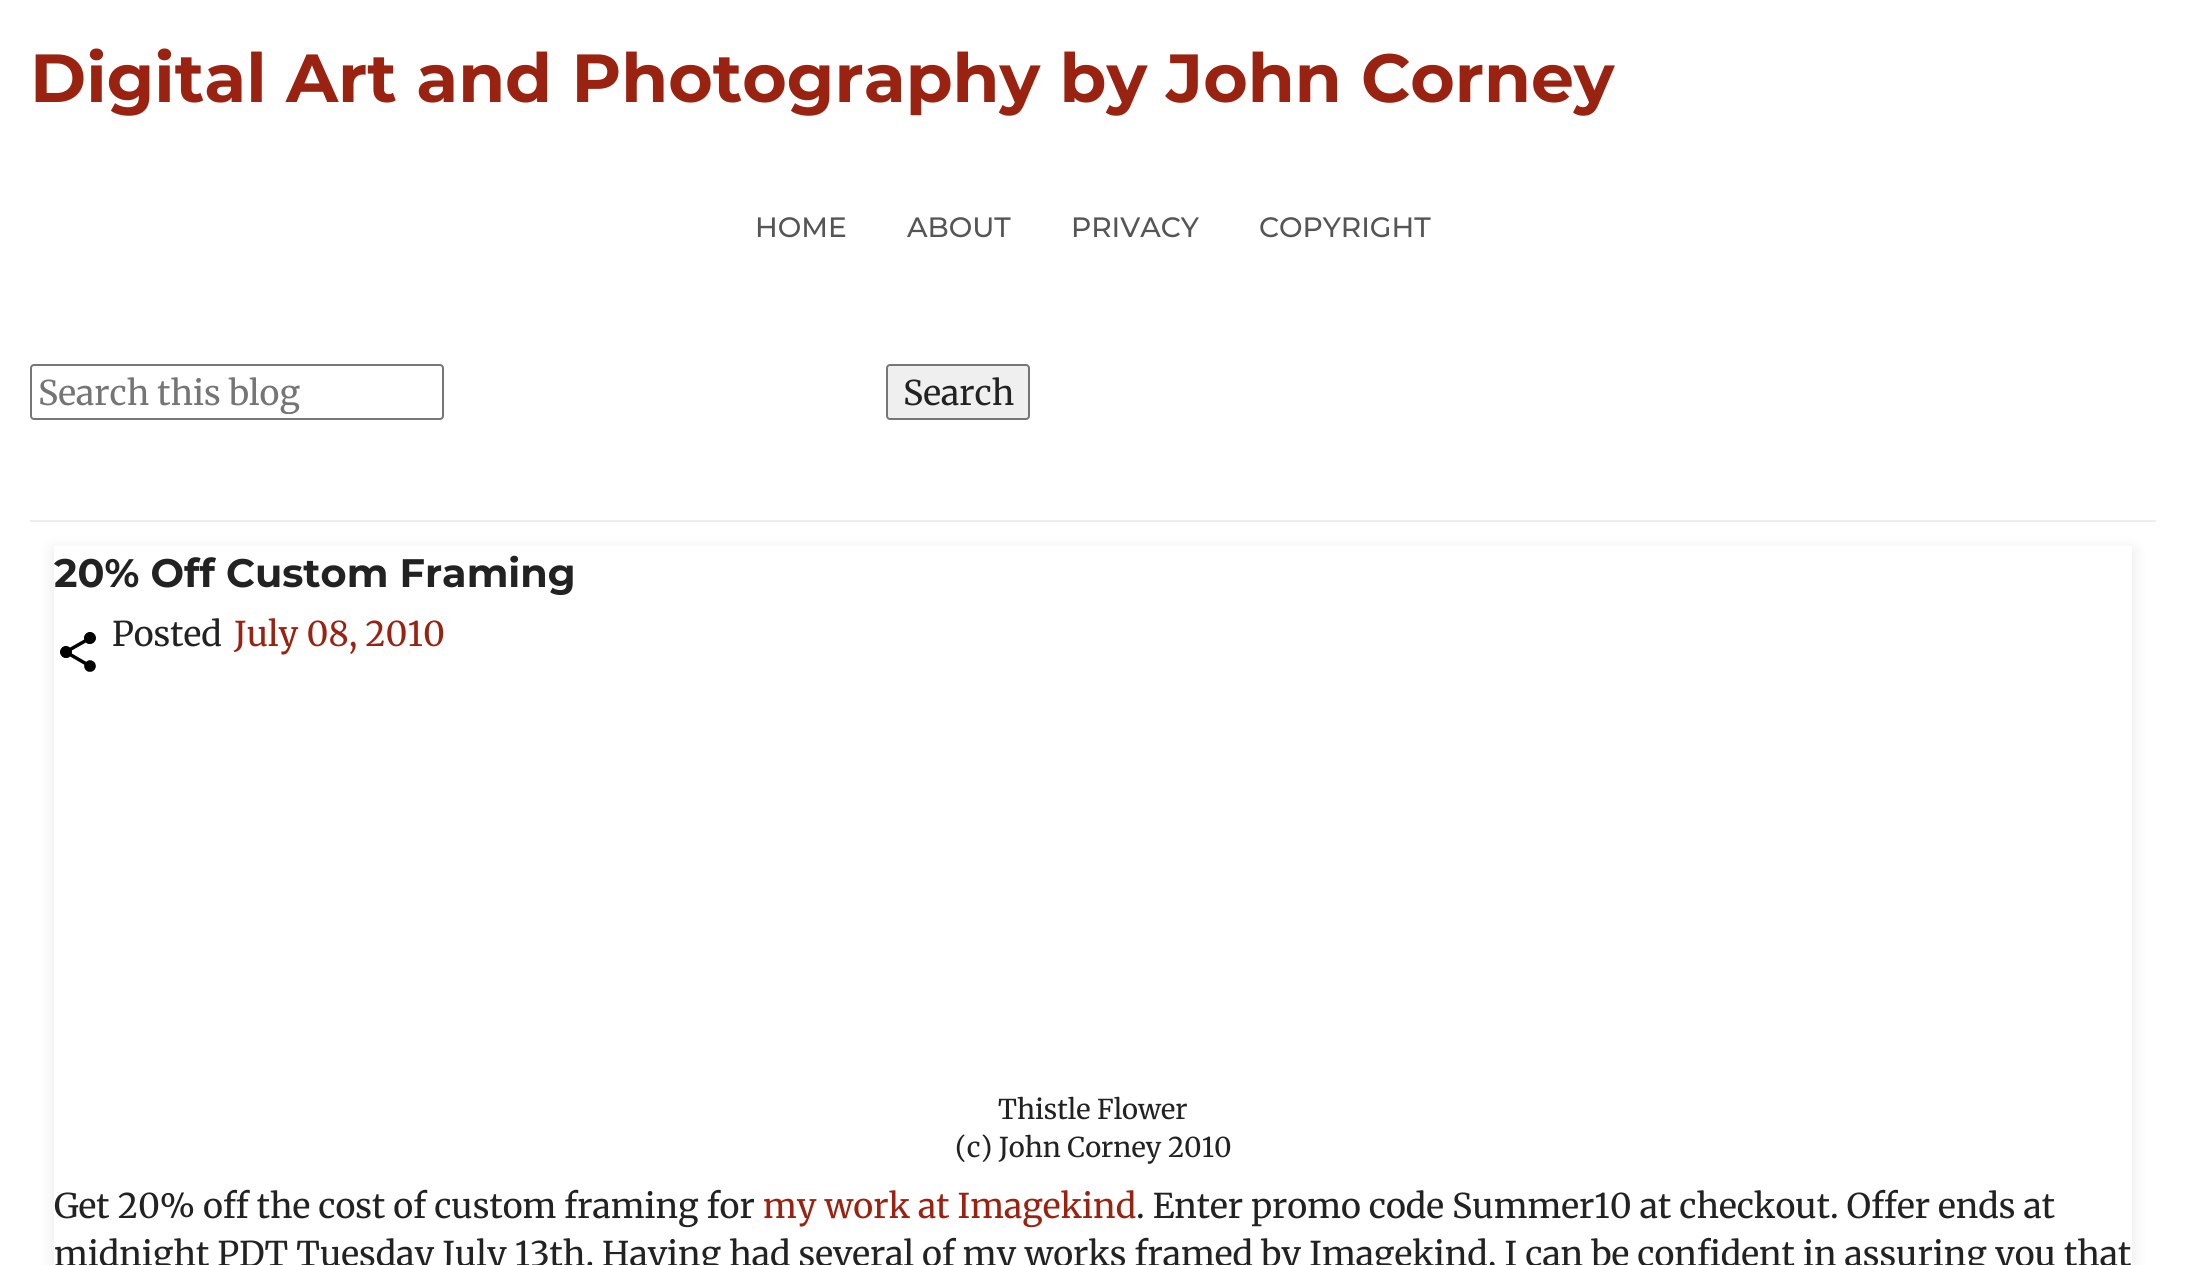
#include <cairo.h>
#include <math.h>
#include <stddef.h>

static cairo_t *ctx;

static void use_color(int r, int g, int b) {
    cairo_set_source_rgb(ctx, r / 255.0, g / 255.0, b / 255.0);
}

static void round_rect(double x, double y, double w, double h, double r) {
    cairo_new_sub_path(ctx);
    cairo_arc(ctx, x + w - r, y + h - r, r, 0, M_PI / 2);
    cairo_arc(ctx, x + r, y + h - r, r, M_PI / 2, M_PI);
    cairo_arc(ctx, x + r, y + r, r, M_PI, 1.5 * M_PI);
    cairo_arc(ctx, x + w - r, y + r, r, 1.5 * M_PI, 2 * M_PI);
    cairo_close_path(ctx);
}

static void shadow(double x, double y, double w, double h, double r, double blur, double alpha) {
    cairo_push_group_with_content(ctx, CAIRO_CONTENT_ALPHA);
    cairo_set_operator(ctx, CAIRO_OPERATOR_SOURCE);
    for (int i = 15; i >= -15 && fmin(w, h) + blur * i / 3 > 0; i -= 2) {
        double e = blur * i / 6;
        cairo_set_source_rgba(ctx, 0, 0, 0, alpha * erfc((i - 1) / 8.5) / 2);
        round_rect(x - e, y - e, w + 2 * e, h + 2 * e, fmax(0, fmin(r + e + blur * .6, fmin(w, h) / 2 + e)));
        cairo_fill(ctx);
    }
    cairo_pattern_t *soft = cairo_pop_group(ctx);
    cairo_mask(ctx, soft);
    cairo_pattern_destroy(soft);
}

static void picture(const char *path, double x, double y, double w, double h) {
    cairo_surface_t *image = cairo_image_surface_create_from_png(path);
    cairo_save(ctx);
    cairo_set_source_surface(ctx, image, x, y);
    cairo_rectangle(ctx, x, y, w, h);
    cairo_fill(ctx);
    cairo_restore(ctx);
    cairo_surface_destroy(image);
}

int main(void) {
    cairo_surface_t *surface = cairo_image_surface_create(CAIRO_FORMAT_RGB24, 2185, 1265);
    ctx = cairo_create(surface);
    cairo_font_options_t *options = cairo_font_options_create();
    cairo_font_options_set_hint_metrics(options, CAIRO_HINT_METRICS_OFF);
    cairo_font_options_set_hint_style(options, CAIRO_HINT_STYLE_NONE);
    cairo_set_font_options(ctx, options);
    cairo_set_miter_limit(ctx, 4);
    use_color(255, 255, 255);
    cairo_paint(ctx);
    cairo_select_font_face(ctx, "Montserrat", CAIRO_FONT_SLANT_NORMAL, CAIRO_FONT_WEIGHT_BOLD);
    cairo_set_font_size(ctx, 68);
    use_color(153, 34, 17);
    cairo_move_to(ctx, 30, 102);
    cairo_show_text(ctx, "Digital Art and Photography by John Corney");
    cairo_select_font_face(ctx, "Montserrat Medium", CAIRO_FONT_SLANT_NORMAL, CAIRO_FONT_WEIGHT_NORMAL);
    cairo_set_font_size(ctx, 28);
    use_color(85, 85, 85);
    cairo_move_to(ctx, 755, 237);
    cairo_show_text(ctx, "HOME");
    cairo_move_to(ctx, 907, 237);
    cairo_show_text(ctx, "ABOUT");
    cairo_move_to(ctx, 1071, 237);
    cairo_show_text(ctx, "PRIVACY");
    cairo_move_to(ctx, 1259, 237);
    cairo_show_text(ctx, "COPYRIGHT");
    use_color(238, 238, 238);
    cairo_rectangle(ctx, 30, 520, 2126, 2);
    cairo_fill(ctx);
    round_rect(31, 365, 412, 54, 3);
    use_color(118, 118, 118);
    cairo_stroke(ctx);
    cairo_save(ctx);
    cairo_rectangle(ctx, 38, 370, 398, 44);
    cairo_clip(ctx);
    cairo_select_font_face(ctx, "Merriweather", CAIRO_FONT_SLANT_NORMAL, CAIRO_FONT_WEIGHT_NORMAL);
    cairo_set_font_size(ctx, 34);
    use_color(117, 117, 117);
    cairo_move_to(ctx, 38, 405);
    cairo_show_text(ctx, "Search this blog");
    cairo_restore(ctx);
    use_color(239, 239, 239);
    round_rect(887, 365, 142, 54, 3);
    cairo_fill_preserve(ctx);
    use_color(118, 118, 118);
    cairo_stroke(ctx);
    cairo_select_font_face(ctx, "Merriweather", CAIRO_FONT_SLANT_NORMAL, CAIRO_FONT_WEIGHT_NORMAL);
    cairo_set_font_size(ctx, 34);
    use_color(34, 34, 34);
    cairo_move_to(ctx, 903, 405);
    cairo_show_text(ctx, "Search");
    cairo_save(ctx);
    cairo_set_fill_rule(ctx, CAIRO_FILL_RULE_EVEN_ODD);
    cairo_new_path(ctx);
    cairo_move_to(ctx, 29, 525);
    cairo_line_to(ctx, 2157, 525);
    cairo_line_to(ctx, 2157, 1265);
    cairo_line_to(ctx, 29, 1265);
    cairo_close_path(ctx);
    cairo_move_to(ctx, 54, 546);
    cairo_line_to(ctx, 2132, 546);
    cairo_line_to(ctx, 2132, 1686);
    cairo_line_to(ctx, 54, 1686);
    cairo_close_path(ctx);
    cairo_clip(ctx);
    use_color(0, 0, 0);
    shadow(54, 550, 2078, 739, 0, 8, 0.1);
    cairo_restore(ctx);
    cairo_select_font_face(ctx, "Montserrat", CAIRO_FONT_SLANT_NORMAL, CAIRO_FONT_WEIGHT_BOLD);
    cairo_set_font_size(ctx, 39.75);
    cairo_move_to(ctx, 54, 587);
    cairo_show_text(ctx, "20% Off Custom Framing");
    picture("img1.png", 60, 632, 36, 40);
    cairo_select_font_face(ctx, "Merriweather", CAIRO_FONT_SLANT_NORMAL, CAIRO_FONT_WEIGHT_NORMAL);
    cairo_set_font_size(ctx, 34);
    cairo_move_to(ctx, 112, 646);
    cairo_show_text(ctx, "Posted");
    use_color(153, 34, 17);
    cairo_move_to(ctx, 234, 646);
    cairo_show_text(ctx, "July 08, 2010");
    cairo_set_font_size(ctx, 27.25);
    use_color(34, 34, 34);
    cairo_move_to(ctx, 998, 1119);
    cairo_show_text(ctx, "Thistle Flower");
    cairo_move_to(ctx, 955, 1157);
    cairo_show_text(ctx, "(c) John Corney 2010");
    cairo_set_font_size(ctx, 34);
    cairo_move_to(ctx, 54, 1218);
    cairo_show_text(ctx, "Get 20% off the cost of custom framing for");
    use_color(153, 34, 17);
    cairo_move_to(ctx, 763, 1218);
    cairo_show_text(ctx, "my work at Imagekind");
    use_color(34, 34, 34);
    cairo_move_to(ctx, 1136, 1218);
    cairo_show_text(ctx, ". Enter promo code Summer10 at checkout. Offer ends at");
    cairo_move_to(ctx, 54, 1266);
    cairo_show_text(ctx, "midnight PDT Tuesday July 13th. Having had several of my works framed by Imagekind, I can be confident in assuring you that");
    cairo_surface_write_to_png(surface, "result.png");
    cairo_font_options_destroy(options);
    cairo_destroy(ctx);
    cairo_surface_destroy(surface);
    return 0;
}
